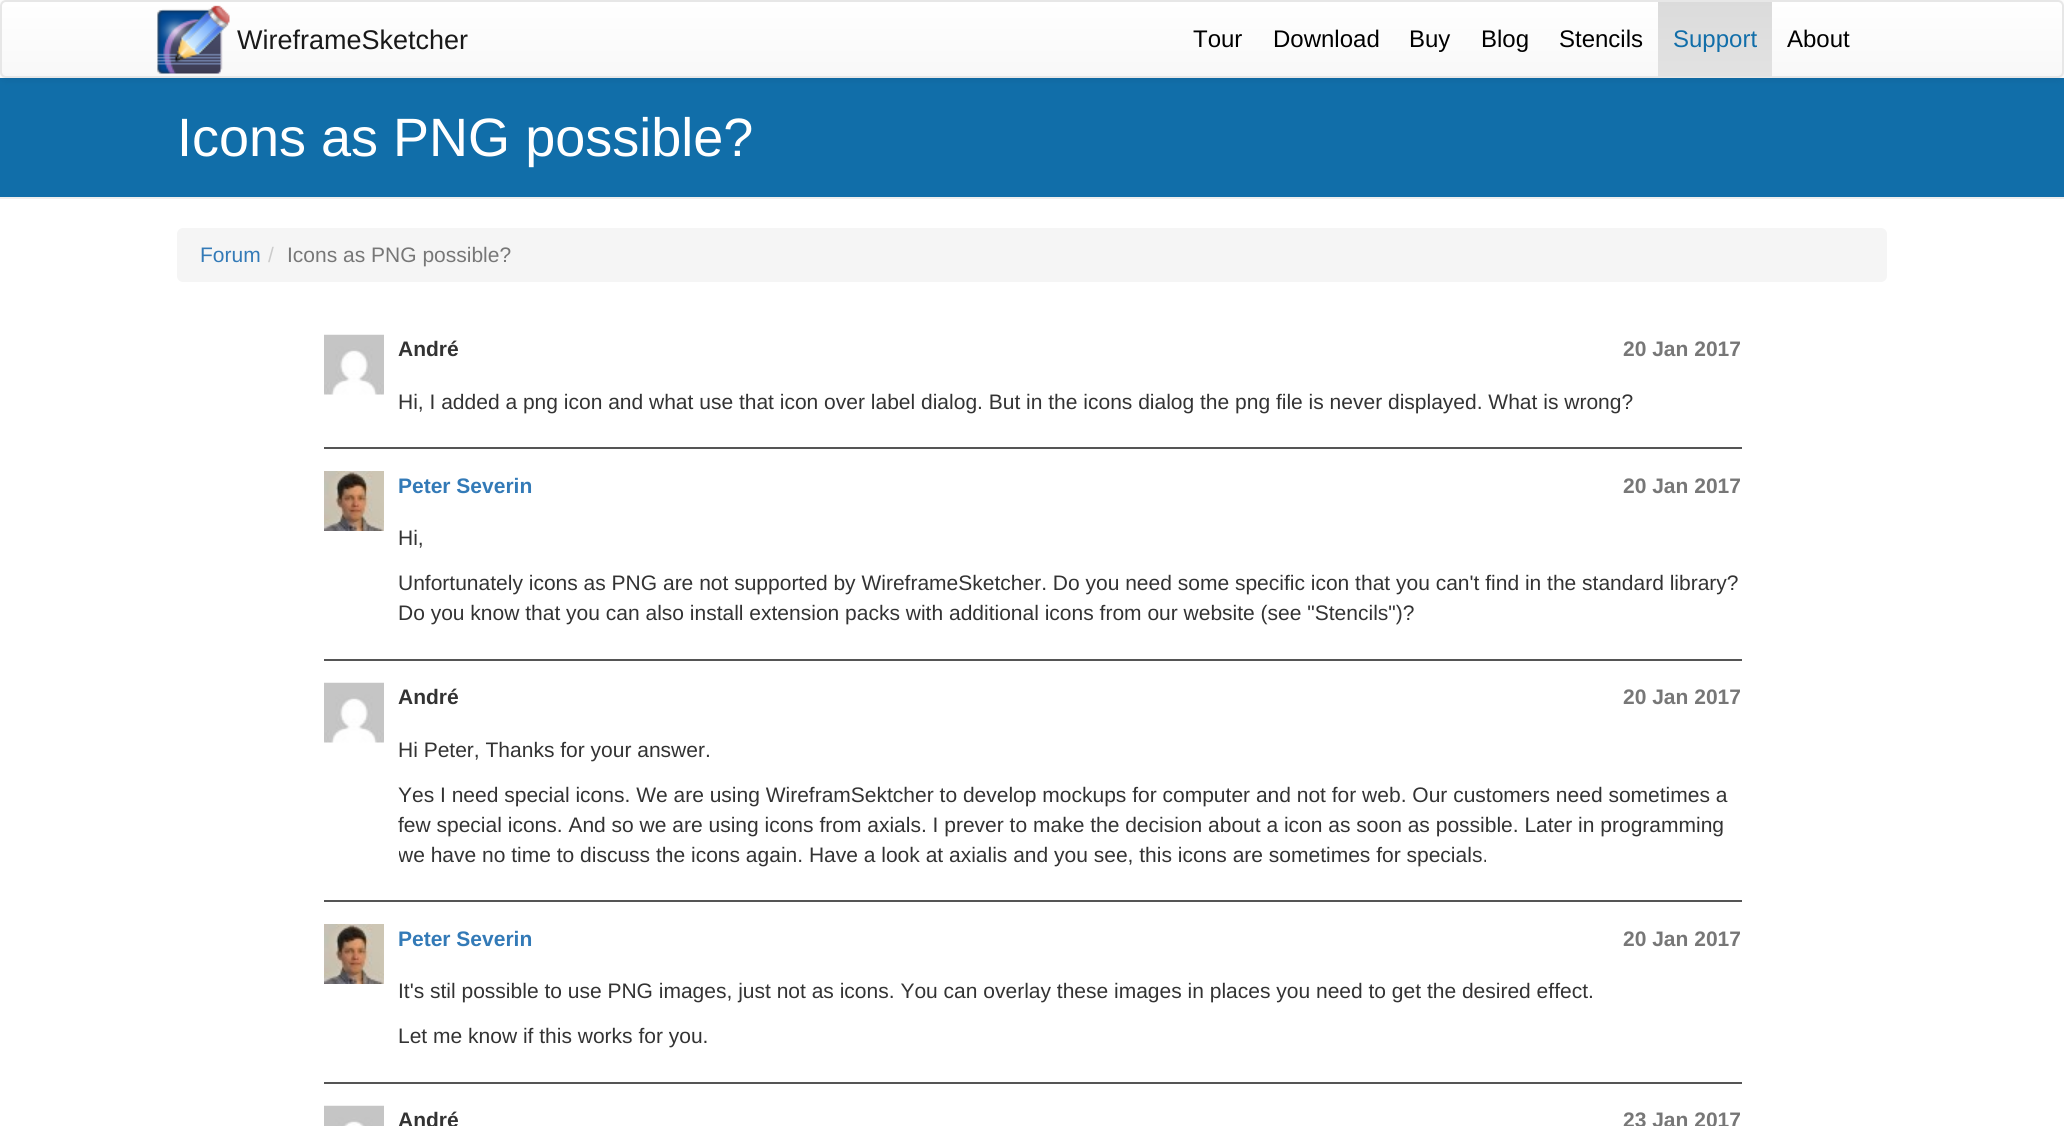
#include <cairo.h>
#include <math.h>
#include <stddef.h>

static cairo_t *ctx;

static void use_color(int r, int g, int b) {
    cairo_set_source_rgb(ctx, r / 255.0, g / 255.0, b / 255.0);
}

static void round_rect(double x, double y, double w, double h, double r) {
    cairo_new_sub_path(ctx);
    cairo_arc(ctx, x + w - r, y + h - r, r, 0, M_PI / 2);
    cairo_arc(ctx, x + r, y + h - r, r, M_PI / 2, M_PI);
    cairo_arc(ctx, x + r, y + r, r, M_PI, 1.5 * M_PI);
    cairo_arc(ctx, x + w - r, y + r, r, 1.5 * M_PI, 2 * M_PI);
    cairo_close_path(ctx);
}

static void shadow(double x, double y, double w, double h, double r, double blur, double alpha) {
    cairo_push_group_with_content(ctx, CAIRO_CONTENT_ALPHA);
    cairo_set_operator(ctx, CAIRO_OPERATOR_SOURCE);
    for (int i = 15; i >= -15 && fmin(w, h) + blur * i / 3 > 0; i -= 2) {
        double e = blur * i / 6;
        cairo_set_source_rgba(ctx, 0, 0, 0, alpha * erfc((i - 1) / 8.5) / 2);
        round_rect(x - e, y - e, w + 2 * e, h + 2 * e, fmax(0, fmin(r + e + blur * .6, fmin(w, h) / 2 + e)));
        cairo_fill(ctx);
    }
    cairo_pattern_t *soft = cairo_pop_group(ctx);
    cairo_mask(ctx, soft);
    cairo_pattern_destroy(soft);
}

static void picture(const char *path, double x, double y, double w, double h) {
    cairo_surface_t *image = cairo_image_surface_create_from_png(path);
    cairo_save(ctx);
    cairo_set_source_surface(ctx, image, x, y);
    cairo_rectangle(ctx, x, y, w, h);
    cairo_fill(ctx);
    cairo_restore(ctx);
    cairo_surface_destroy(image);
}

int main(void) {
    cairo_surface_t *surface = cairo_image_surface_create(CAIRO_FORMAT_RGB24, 2064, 1126);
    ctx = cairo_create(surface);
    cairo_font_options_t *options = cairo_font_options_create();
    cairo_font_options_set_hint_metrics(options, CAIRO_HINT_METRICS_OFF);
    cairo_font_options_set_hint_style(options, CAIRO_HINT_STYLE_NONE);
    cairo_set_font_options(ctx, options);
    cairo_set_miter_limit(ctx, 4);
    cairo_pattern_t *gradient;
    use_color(255, 255, 255);
    cairo_paint(ctx);
    use_color(17, 110, 169);
    cairo_rectangle(ctx, 0, 78, 2064, 119);
    cairo_fill(ctx);
    use_color(0, 0, 0);
    shadow(0, 2, 2064, 78, 6, 4, 0.07);
    cairo_save(ctx);
    round_rect(0, 0, 2064, 78, 6);
    cairo_clip(ctx);
    gradient = cairo_pattern_create_linear(1032, 1.5, 1032, 77);
    cairo_pattern_add_color_stop_rgba(gradient, 0, 1, 1, 1, 1);
    cairo_pattern_add_color_stop_rgba(gradient, 1, 0.973, 0.973, 0.973, 1);
    cairo_set_source(ctx, gradient);
    cairo_pattern_destroy(gradient);
    cairo_rectangle(ctx, 0, 2, 2064, 75);
    cairo_fill(ctx);
    cairo_restore(ctx);
    round_rect(1, 1, 2062, 76, 5);
    use_color(231, 231, 231);
    cairo_stroke(ctx);
    picture("img1.png", 157, 5, 73, 69);
    cairo_select_font_face(ctx, "Liberation Sans", CAIRO_FONT_SLANT_NORMAL, CAIRO_FONT_WEIGHT_NORMAL);
    cairo_set_font_size(ctx, 27);
    use_color(25, 25, 25);
    cairo_move_to(ctx, 237, 49);
    cairo_show_text(ctx, "WireframeSketcher");
    cairo_set_font_size(ctx, 24);
    use_color(0, 0, 0);
    cairo_move_to(ctx, 1193, 47);
    cairo_show_text(ctx, "Tour");
    cairo_move_to(ctx, 1273, 47);
    cairo_show_text(ctx, "Download");
    cairo_move_to(ctx, 1409, 47);
    cairo_show_text(ctx, "Buy");
    cairo_move_to(ctx, 1481, 47);
    cairo_show_text(ctx, "Blog");
    cairo_move_to(ctx, 1559, 47);
    cairo_show_text(ctx, "Stencils");
    gradient = cairo_pattern_create_linear(1715, 1.5, 1715, 77);
    cairo_pattern_add_color_stop_rgba(gradient, 0, 0.859, 0.859, 0.859, 1);
    cairo_pattern_add_color_stop_rgba(gradient, 1, 0.886, 0.886, 0.886, 1);
    cairo_set_source(ctx, gradient);
    cairo_pattern_destroy(gradient);
    cairo_rectangle(ctx, 1658, 2, 114, 75);
    cairo_fill(ctx);
    use_color(17, 110, 169);
    cairo_move_to(ctx, 1673, 47);
    cairo_show_text(ctx, "Support");
    use_color(0, 0, 0);
    cairo_move_to(ctx, 1787, 47);
    cairo_show_text(ctx, "About");
    use_color(238, 238, 238);
    cairo_rectangle(ctx, 0, 197, 2064, 2);
    cairo_fill(ctx);
    cairo_set_font_size(ctx, 54);
    use_color(255, 255, 255);
    cairo_move_to(ctx, 177, 156);
    cairo_show_text(ctx, "Icons as PNG possible?");
    use_color(245, 245, 245);
    round_rect(177, 228, 1710, 54, 6);
    cairo_fill(ctx);
    cairo_set_font_size(ctx, 21);
    use_color(51, 122, 183);
    cairo_move_to(ctx, 200, 262);
    cairo_show_text(ctx, "Forum");
    use_color(204, 204, 204);
    cairo_move_to(ctx, 268, 262);
    cairo_show_text(ctx, "/");
    use_color(119, 119, 119);
    cairo_move_to(ctx, 287, 262);
    cairo_show_text(ctx, "Icons as PNG possible?");
    use_color(85, 85, 85);
    cairo_rectangle(ctx, 324, 447, 1418, 2);
    cairo_fill(ctx);
    picture("img2.png", 324, 334, 60, 61);
    cairo_select_font_face(ctx, "Liberation Sans", CAIRO_FONT_SLANT_NORMAL, CAIRO_FONT_WEIGHT_BOLD);
    use_color(51, 51, 51);
    cairo_move_to(ctx, 398, 356);
    cairo_show_text(ctx, "André");
    use_color(119, 119, 119);
    cairo_move_to(ctx, 1623, 356);
    cairo_show_text(ctx, "20 Jan 2017");
    cairo_select_font_face(ctx, "Liberation Sans", CAIRO_FONT_SLANT_NORMAL, CAIRO_FONT_WEIGHT_NORMAL);
    use_color(51, 51, 51);
    cairo_move_to(ctx, 398, 409);
    cairo_show_text(ctx, "Hi, I added a png icon and what use that icon over label dialog. But in the icons dialog the png file is never displayed. What is wrong?");
    use_color(85, 85, 85);
    cairo_rectangle(ctx, 324, 659, 1418, 2);
    cairo_fill(ctx);
    picture("img3.png", 324, 471, 60, 60);
    cairo_select_font_face(ctx, "Liberation Sans", CAIRO_FONT_SLANT_NORMAL, CAIRO_FONT_WEIGHT_BOLD);
    use_color(51, 122, 183);
    cairo_move_to(ctx, 398, 493);
    cairo_show_text(ctx, "Peter Severin");
    use_color(119, 119, 119);
    cairo_move_to(ctx, 1623, 493);
    cairo_show_text(ctx, "20 Jan 2017");
    cairo_select_font_face(ctx, "Liberation Sans", CAIRO_FONT_SLANT_NORMAL, CAIRO_FONT_WEIGHT_NORMAL);
    use_color(51, 51, 51);
    cairo_move_to(ctx, 398, 545);
    cairo_show_text(ctx, "Hi,");
    cairo_move_to(ctx, 398, 590);
    cairo_show_text(ctx, "Unfortunately icons as PNG are not supported by WireframeSketcher. Do you need some specific icon that you can't find in the standard library?");
    cairo_move_to(ctx, 398, 620);
    cairo_show_text(ctx, "Do you know that you can also install extension packs with additional icons from our website (see \"Stencils\")?");
    use_color(85, 85, 85);
    cairo_rectangle(ctx, 324, 900, 1418, 2);
    cairo_fill(ctx);
    picture("img2.png", 324, 682, 60, 61);
    cairo_select_font_face(ctx, "Liberation Sans", CAIRO_FONT_SLANT_NORMAL, CAIRO_FONT_WEIGHT_BOLD);
    use_color(51, 51, 51);
    cairo_move_to(ctx, 398, 704);
    cairo_show_text(ctx, "André");
    use_color(119, 119, 119);
    cairo_move_to(ctx, 1623, 704);
    cairo_show_text(ctx, "20 Jan 2017");
    cairo_select_font_face(ctx, "Liberation Sans", CAIRO_FONT_SLANT_NORMAL, CAIRO_FONT_WEIGHT_NORMAL);
    use_color(51, 51, 51);
    cairo_move_to(ctx, 398, 757);
    cairo_show_text(ctx, "Hi Peter, Thanks for your answer.");
    cairo_move_to(ctx, 398, 802);
    cairo_show_text(ctx, "Yes I need special icons. We are using WireframSektcher to develop mockups for computer and not for web. Our customers need sometimes a");
    cairo_move_to(ctx, 398, 832);
    cairo_show_text(ctx, "few special icons. And so we are using icons from axials. I prever to make the decision about a icon as soon as possible. Later in programming");
    cairo_save(ctx);
    cairo_rectangle(ctx, 399, 683, 1343, 202);
    cairo_clip(ctx);
    cairo_move_to(ctx, 398, 862);
    cairo_show_text(ctx, "we have no time to discuss the icons again. Have a look at axialis and you see, this icons are sometimes for specials.");
    cairo_restore(ctx);
    use_color(85, 85, 85);
    cairo_rectangle(ctx, 324, 1082, 1418, 2);
    cairo_fill(ctx);
    picture("img3.png", 324, 924, 60, 60);
    cairo_select_font_face(ctx, "Liberation Sans", CAIRO_FONT_SLANT_NORMAL, CAIRO_FONT_WEIGHT_BOLD);
    use_color(51, 122, 183);
    cairo_move_to(ctx, 398, 946);
    cairo_show_text(ctx, "Peter Severin");
    use_color(119, 119, 119);
    cairo_move_to(ctx, 1623, 946);
    cairo_show_text(ctx, "20 Jan 2017");
    cairo_select_font_face(ctx, "Liberation Sans", CAIRO_FONT_SLANT_NORMAL, CAIRO_FONT_WEIGHT_NORMAL);
    use_color(51, 51, 51);
    cairo_move_to(ctx, 398, 998);
    cairo_show_text(ctx, "It's stil possible to use PNG images, just not as icons. You can overlay these images in places you need to get the desired effect.");
    cairo_move_to(ctx, 398, 1043);
    cairo_show_text(ctx, "Let me know if this works for you.");
    picture("img4.png", 324, 1105, 60, 21);
    cairo_select_font_face(ctx, "Liberation Sans", CAIRO_FONT_SLANT_NORMAL, CAIRO_FONT_WEIGHT_BOLD);
    cairo_move_to(ctx, 398, 1127);
    cairo_show_text(ctx, "André");
    use_color(119, 119, 119);
    cairo_move_to(ctx, 1623, 1127);
    cairo_show_text(ctx, "23 Jan 2017");
    cairo_surface_write_to_png(surface, "result.png");
    cairo_font_options_destroy(options);
    cairo_destroy(ctx);
    cairo_surface_destroy(surface);
    return 0;
}
